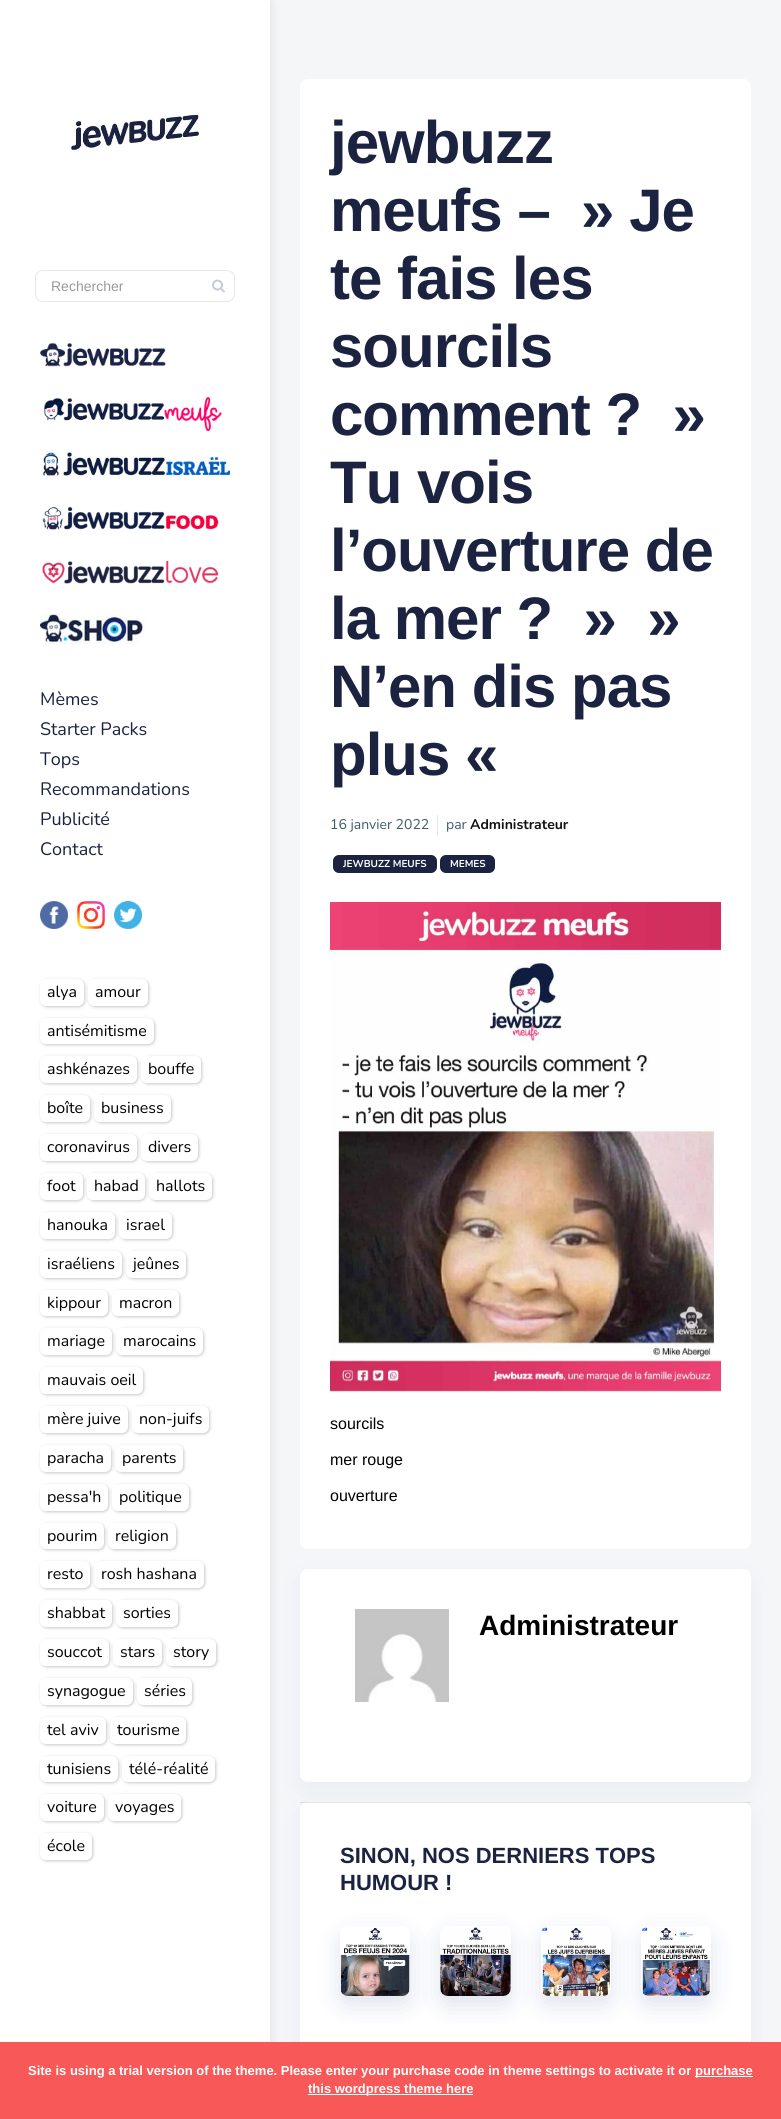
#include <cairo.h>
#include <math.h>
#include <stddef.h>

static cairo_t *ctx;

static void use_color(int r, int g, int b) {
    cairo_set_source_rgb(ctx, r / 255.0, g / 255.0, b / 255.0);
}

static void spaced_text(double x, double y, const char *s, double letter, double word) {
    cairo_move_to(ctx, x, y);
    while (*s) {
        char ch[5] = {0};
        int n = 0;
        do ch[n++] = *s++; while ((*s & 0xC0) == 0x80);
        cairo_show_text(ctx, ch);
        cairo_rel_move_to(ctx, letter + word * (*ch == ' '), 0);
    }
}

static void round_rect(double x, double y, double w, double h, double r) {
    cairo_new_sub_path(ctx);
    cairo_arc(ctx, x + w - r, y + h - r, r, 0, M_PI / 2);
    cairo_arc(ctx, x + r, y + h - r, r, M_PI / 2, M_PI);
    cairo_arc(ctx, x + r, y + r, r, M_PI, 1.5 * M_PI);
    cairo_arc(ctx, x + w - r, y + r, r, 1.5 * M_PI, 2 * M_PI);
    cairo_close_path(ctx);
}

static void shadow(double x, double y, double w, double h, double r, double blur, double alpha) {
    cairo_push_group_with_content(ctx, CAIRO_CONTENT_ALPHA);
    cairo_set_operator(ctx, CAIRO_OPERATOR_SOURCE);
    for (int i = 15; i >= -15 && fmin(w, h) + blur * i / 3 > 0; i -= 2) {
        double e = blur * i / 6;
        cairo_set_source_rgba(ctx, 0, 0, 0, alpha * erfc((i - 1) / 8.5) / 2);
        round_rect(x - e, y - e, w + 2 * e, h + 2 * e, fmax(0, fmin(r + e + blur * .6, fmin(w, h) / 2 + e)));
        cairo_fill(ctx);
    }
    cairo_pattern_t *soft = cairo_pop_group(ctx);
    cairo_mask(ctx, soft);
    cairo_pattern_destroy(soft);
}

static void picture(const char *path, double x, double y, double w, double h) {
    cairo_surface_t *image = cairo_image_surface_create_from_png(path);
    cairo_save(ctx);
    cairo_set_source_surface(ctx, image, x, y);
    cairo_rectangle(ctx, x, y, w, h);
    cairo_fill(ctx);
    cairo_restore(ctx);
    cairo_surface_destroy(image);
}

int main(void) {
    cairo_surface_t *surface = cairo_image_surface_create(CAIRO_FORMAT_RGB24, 781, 2119);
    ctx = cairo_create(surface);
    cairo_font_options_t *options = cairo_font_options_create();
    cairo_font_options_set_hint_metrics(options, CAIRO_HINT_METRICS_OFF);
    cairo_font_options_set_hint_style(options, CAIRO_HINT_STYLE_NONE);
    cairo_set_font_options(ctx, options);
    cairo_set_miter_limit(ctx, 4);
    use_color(245, 246, 248);
    cairo_paint(ctx);
    use_color(128, 128, 128);
    shadow(1, 1, 270, 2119, 0, 5, 0.18);
    use_color(151, 160, 204);
    shadow(300, 1578, 451, 213, 8, 12, 0.12);
    use_color(255, 255, 255);
    round_rect(300, 1569, 451, 213, 8);
    cairo_fill(ctx);
    use_color(151, 160, 204);
    shadow(300, 1811, 451, 254, 8, 12, 0.12);
    use_color(255, 255, 255);
    cairo_rectangle(ctx, 0, 0, 270, 2042);
    cairo_fill(ctx);
    picture("img1.png", 70, 114, 130, 37);
    round_rect(35.5, 270.5, 199, 31, 7.5);
    use_color(232, 232, 232);
    cairo_set_line_width(ctx, 1);
    cairo_stroke(ctx);
    cairo_select_font_face(ctx, "Liberation Sans", CAIRO_FONT_SLANT_NORMAL, CAIRO_FONT_WEIGHT_NORMAL);
    cairo_set_font_size(ctx, 14);
    use_color(153, 153, 153);
    cairo_move_to(ctx, 51, 291);
    cairo_show_text(ctx, "Rechercher");
    picture("img2.png", 212, 279, 13, 14);
    picture("img3.png", 40, 342, 126, 25);
    picture("img4.png", 43, 397, 179, 34);
    picture("img5.png", 40, 451, 190, 28);
    picture("img6.png", 42, 506, 177, 24);
    picture("img7.png", 42, 560, 177, 24);
    picture("img8.png", 40, 614, 106, 31);
    cairo_select_font_face(ctx, "Nunito", CAIRO_FONT_SLANT_NORMAL, CAIRO_FONT_WEIGHT_NORMAL);
    cairo_set_font_size(ctx, 18);
    use_color(27, 35, 65);
    cairo_move_to(ctx, 40, 705);
    cairo_show_text(ctx, "Mèmes");
    cairo_move_to(ctx, 40, 735);
    cairo_show_text(ctx, "Starter Packs");
    cairo_move_to(ctx, 40, 765);
    cairo_show_text(ctx, "Tops");
    cairo_move_to(ctx, 40, 795);
    cairo_show_text(ctx, "Recommandations");
    cairo_move_to(ctx, 40, 825);
    cairo_show_text(ctx, "Publicité");
    cairo_move_to(ctx, 40, 855);
    cairo_show_text(ctx, "Contact");
    picture("img9.png", 40, 901, 28, 28);
    picture("img10.png", 77, 901, 28, 28);
    picture("img11.png", 114, 901, 28, 28);
    use_color(128, 128, 128);
    shadow(41, 980, 44, 27, 6, 1.5, 0.44);
    use_color(255, 255, 255);
    round_rect(40, 979, 44, 27, 6);
    cairo_fill(ctx);
    cairo_set_font_size(ctx, 16);
    use_color(0, 0, 0);
    cairo_move_to(ctx, 47, 997);
    cairo_show_text(ctx, "alya");
    use_color(128, 128, 128);
    shadow(89, 980, 60, 27, 6, 1.5, 0.44);
    use_color(255, 255, 255);
    round_rect(88, 979, 60, 27, 6);
    cairo_fill(ctx);
    use_color(0, 0, 0);
    cairo_move_to(ctx, 95, 997);
    cairo_show_text(ctx, "amour");
    use_color(128, 128, 128);
    shadow(41, 1019, 114, 26, 6, 1.5, 0.44);
    use_color(255, 255, 255);
    round_rect(40, 1018, 114, 26, 6);
    cairo_fill(ctx);
    use_color(0, 0, 0);
    cairo_move_to(ctx, 47, 1036);
    cairo_show_text(ctx, "antisémitisme");
    use_color(128, 128, 128);
    shadow(41, 1057, 97, 27, 6, 1.5, 0.44);
    use_color(255, 255, 255);
    round_rect(40, 1056, 97, 27, 6);
    cairo_fill(ctx);
    use_color(0, 0, 0);
    cairo_move_to(ctx, 47, 1074);
    cairo_show_text(ctx, "ashkénazes");
    use_color(128, 128, 128);
    shadow(142, 1057, 60, 27, 6, 1.5, 0.44);
    use_color(255, 255, 255);
    round_rect(141, 1056, 60, 27, 6);
    cairo_fill(ctx);
    use_color(0, 0, 0);
    cairo_move_to(ctx, 148, 1074);
    cairo_show_text(ctx, "bouffe");
    use_color(128, 128, 128);
    shadow(41, 1096, 50, 27, 6, 1.5, 0.44);
    use_color(255, 255, 255);
    round_rect(40, 1095, 50, 27, 6);
    cairo_fill(ctx);
    use_color(0, 0, 0);
    cairo_move_to(ctx, 47, 1113);
    cairo_show_text(ctx, "boîte");
    use_color(128, 128, 128);
    shadow(95, 1096, 77, 27, 6, 1.5, 0.44);
    use_color(255, 255, 255);
    round_rect(94, 1095, 77, 27, 6);
    cairo_fill(ctx);
    use_color(0, 0, 0);
    cairo_move_to(ctx, 101, 1113);
    cairo_show_text(ctx, "business");
    use_color(128, 128, 128);
    shadow(41, 1135, 97, 27, 6, 1.5, 0.44);
    use_color(255, 255, 255);
    round_rect(40, 1134, 97, 27, 6);
    cairo_fill(ctx);
    use_color(0, 0, 0);
    cairo_move_to(ctx, 47, 1152);
    cairo_show_text(ctx, "coronavirus");
    use_color(128, 128, 128);
    shadow(142, 1135, 57, 27, 6, 1.5, 0.44);
    use_color(255, 255, 255);
    round_rect(141, 1134, 57, 27, 6);
    cairo_fill(ctx);
    use_color(0, 0, 0);
    cairo_move_to(ctx, 148, 1152);
    cairo_show_text(ctx, "divers");
    use_color(128, 128, 128);
    shadow(41, 1174, 43, 27, 6, 1.5, 0.44);
    use_color(255, 255, 255);
    round_rect(40, 1173, 43, 27, 6);
    cairo_fill(ctx);
    use_color(0, 0, 0);
    cairo_move_to(ctx, 47, 1191);
    cairo_show_text(ctx, "foot");
    use_color(128, 128, 128);
    shadow(88, 1174, 58, 27, 6, 1.5, 0.44);
    use_color(255, 255, 255);
    round_rect(87, 1173, 58, 27, 6);
    cairo_fill(ctx);
    use_color(0, 0, 0);
    cairo_move_to(ctx, 94, 1191);
    cairo_show_text(ctx, "habad");
    use_color(128, 128, 128);
    shadow(150, 1174, 63, 27, 6, 1.5, 0.44);
    use_color(255, 255, 255);
    round_rect(149, 1173, 63, 27, 6);
    cairo_fill(ctx);
    use_color(0, 0, 0);
    cairo_move_to(ctx, 156, 1191);
    cairo_show_text(ctx, "hallots");
    use_color(128, 128, 128);
    shadow(41, 1213, 75, 27, 6, 1.5, 0.44);
    use_color(255, 255, 255);
    round_rect(40, 1212, 75, 27, 6);
    cairo_fill(ctx);
    use_color(0, 0, 0);
    cairo_move_to(ctx, 47, 1230);
    cairo_show_text(ctx, "hanouka");
    use_color(128, 128, 128);
    shadow(120, 1213, 53, 27, 6, 1.5, 0.44);
    use_color(255, 255, 255);
    round_rect(119, 1212, 53, 27, 6);
    cairo_fill(ctx);
    use_color(0, 0, 0);
    cairo_move_to(ctx, 126, 1230);
    cairo_show_text(ctx, "israel");
    use_color(128, 128, 128);
    shadow(41, 1252, 82, 27, 6, 1.5, 0.44);
    use_color(255, 255, 255);
    round_rect(40, 1251, 82, 27, 6);
    cairo_fill(ctx);
    use_color(0, 0, 0);
    cairo_move_to(ctx, 47, 1269);
    cairo_show_text(ctx, "israéliens");
    use_color(128, 128, 128);
    shadow(127, 1252, 60, 27, 6, 1.5, 0.44);
    use_color(255, 255, 255);
    round_rect(126, 1251, 60, 27, 6);
    cairo_fill(ctx);
    use_color(0, 0, 0);
    cairo_move_to(ctx, 133, 1269);
    cairo_show_text(ctx, "jeûnes");
    use_color(128, 128, 128);
    shadow(41, 1291, 68, 26, 6, 1.5, 0.44);
    use_color(255, 255, 255);
    round_rect(40, 1290, 68, 26, 6);
    cairo_fill(ctx);
    use_color(0, 0, 0);
    cairo_move_to(ctx, 47, 1308);
    cairo_show_text(ctx, "kippour");
    use_color(128, 128, 128);
    shadow(113, 1291, 67, 26, 6, 1.5, 0.44);
    use_color(255, 255, 255);
    round_rect(112, 1290, 67, 26, 6);
    cairo_fill(ctx);
    use_color(0, 0, 0);
    cairo_move_to(ctx, 119, 1308);
    cairo_show_text(ctx, "macron");
    use_color(128, 128, 128);
    shadow(41, 1329, 72, 27, 6, 1.5, 0.44);
    use_color(255, 255, 255);
    round_rect(40, 1328, 72, 27, 6);
    cairo_fill(ctx);
    use_color(0, 0, 0);
    cairo_move_to(ctx, 47, 1346);
    cairo_show_text(ctx, "mariage");
    use_color(128, 128, 128);
    shadow(117, 1329, 87, 27, 6, 1.5, 0.44);
    use_color(255, 255, 255);
    round_rect(116, 1328, 87, 27, 6);
    cairo_fill(ctx);
    use_color(0, 0, 0);
    cairo_move_to(ctx, 123, 1346);
    cairo_show_text(ctx, "marocains");
    use_color(128, 128, 128);
    shadow(41, 1368, 103, 27, 6, 1.5, 0.44);
    use_color(255, 255, 255);
    round_rect(40, 1367, 103, 27, 6);
    cairo_fill(ctx);
    use_color(0, 0, 0);
    cairo_move_to(ctx, 47, 1385);
    cairo_show_text(ctx, "mauvais oeil");
    use_color(128, 128, 128);
    shadow(41, 1407, 88, 27, 6, 1.5, 0.44);
    use_color(255, 255, 255);
    round_rect(40, 1406, 88, 27, 6);
    cairo_fill(ctx);
    use_color(0, 0, 0);
    cairo_move_to(ctx, 47, 1424);
    cairo_show_text(ctx, "mère juive");
    use_color(128, 128, 128);
    shadow(133, 1407, 77, 27, 6, 1.5, 0.44);
    use_color(255, 255, 255);
    round_rect(132, 1406, 77, 27, 6);
    cairo_fill(ctx);
    use_color(0, 0, 0);
    cairo_move_to(ctx, 139, 1424);
    cairo_show_text(ctx, "non-juifs");
    use_color(128, 128, 128);
    shadow(41, 1446, 71, 27, 6, 1.5, 0.44);
    use_color(255, 255, 255);
    round_rect(40, 1445, 71, 27, 6);
    cairo_fill(ctx);
    use_color(0, 0, 0);
    cairo_move_to(ctx, 47, 1463);
    cairo_show_text(ctx, "paracha");
    use_color(128, 128, 128);
    shadow(116, 1446, 68, 27, 6, 1.5, 0.44);
    use_color(255, 255, 255);
    round_rect(115, 1445, 68, 27, 6);
    cairo_fill(ctx);
    use_color(0, 0, 0);
    cairo_move_to(ctx, 122, 1463);
    cairo_show_text(ctx, "parents");
    use_color(128, 128, 128);
    shadow(41, 1485, 68, 27, 6, 1.5, 0.44);
    use_color(255, 255, 255);
    round_rect(40, 1484, 68, 27, 6);
    cairo_fill(ctx);
    use_color(0, 0, 0);
    cairo_move_to(ctx, 47, 1502);
    cairo_show_text(ctx, "pessa'h");
    use_color(128, 128, 128);
    shadow(113, 1485, 77, 27, 6, 1.5, 0.44);
    use_color(255, 255, 255);
    round_rect(112, 1484, 77, 27, 6);
    cairo_fill(ctx);
    use_color(0, 0, 0);
    cairo_move_to(ctx, 119, 1502);
    cairo_show_text(ctx, "politique");
    use_color(128, 128, 128);
    shadow(41, 1524, 64, 26, 6, 1.5, 0.44);
    use_color(255, 255, 255);
    round_rect(40, 1523, 64, 26, 6);
    cairo_fill(ctx);
    use_color(0, 0, 0);
    cairo_move_to(ctx, 47, 1541);
    cairo_show_text(ctx, "pourim");
    use_color(128, 128, 128);
    shadow(109, 1524, 68, 26, 6, 1.5, 0.44);
    use_color(255, 255, 255);
    round_rect(108, 1523, 68, 26, 6);
    cairo_fill(ctx);
    use_color(0, 0, 0);
    cairo_move_to(ctx, 115, 1541);
    cairo_show_text(ctx, "religion");
    use_color(128, 128, 128);
    shadow(41, 1562, 50, 27, 6, 1.5, 0.44);
    use_color(255, 255, 255);
    round_rect(40, 1561, 50, 27, 6);
    cairo_fill(ctx);
    use_color(0, 0, 0);
    cairo_move_to(ctx, 47, 1579);
    cairo_show_text(ctx, "resto");
    use_color(128, 128, 128);
    shadow(95, 1562, 110, 27, 6, 1.5, 0.44);
    use_color(255, 255, 255);
    round_rect(94, 1561, 110, 27, 6);
    cairo_fill(ctx);
    use_color(0, 0, 0);
    cairo_move_to(ctx, 101, 1579);
    cairo_show_text(ctx, "rosh hashana");
    use_color(128, 128, 128);
    shadow(41, 1601, 72, 27, 6, 1.5, 0.44);
    use_color(255, 255, 255);
    round_rect(40, 1600, 72, 27, 6);
    cairo_fill(ctx);
    use_color(0, 0, 0);
    cairo_move_to(ctx, 47, 1618);
    cairo_show_text(ctx, "shabbat");
    use_color(128, 128, 128);
    shadow(117, 1601, 62, 27, 6, 1.5, 0.44);
    use_color(255, 255, 255);
    round_rect(116, 1600, 62, 27, 6);
    cairo_fill(ctx);
    use_color(0, 0, 0);
    cairo_move_to(ctx, 123, 1618);
    cairo_show_text(ctx, "sorties");
    use_color(128, 128, 128);
    shadow(41, 1640, 69, 27, 6, 1.5, 0.44);
    use_color(255, 255, 255);
    round_rect(40, 1639, 69, 27, 6);
    cairo_fill(ctx);
    use_color(0, 0, 0);
    cairo_move_to(ctx, 47, 1657);
    cairo_show_text(ctx, "souccot");
    use_color(128, 128, 128);
    shadow(114, 1640, 49, 27, 6, 1.5, 0.44);
    use_color(255, 255, 255);
    round_rect(113, 1639, 49, 27, 6);
    cairo_fill(ctx);
    use_color(0, 0, 0);
    cairo_move_to(ctx, 120, 1657);
    cairo_show_text(ctx, "stars");
    use_color(128, 128, 128);
    shadow(167, 1640, 50, 27, 6, 1.5, 0.44);
    use_color(255, 255, 255);
    round_rect(166, 1639, 50, 27, 6);
    cairo_fill(ctx);
    use_color(0, 0, 0);
    cairo_move_to(ctx, 173, 1657);
    cairo_show_text(ctx, "story");
    use_color(128, 128, 128);
    shadow(41, 1679, 93, 27, 6, 1.5, 0.44);
    use_color(255, 255, 255);
    round_rect(40, 1678, 93, 27, 6);
    cairo_fill(ctx);
    use_color(0, 0, 0);
    cairo_move_to(ctx, 47, 1696);
    cairo_show_text(ctx, "synagogue");
    use_color(128, 128, 128);
    shadow(138, 1679, 55, 27, 6, 1.5, 0.44);
    use_color(255, 255, 255);
    round_rect(137, 1678, 55, 27, 6);
    cairo_fill(ctx);
    use_color(0, 0, 0);
    cairo_move_to(ctx, 144, 1696);
    cairo_show_text(ctx, "séries");
    use_color(128, 128, 128);
    shadow(41, 1718, 66, 27, 6, 1.5, 0.44);
    use_color(255, 255, 255);
    round_rect(40, 1717, 66, 27, 6);
    cairo_fill(ctx);
    use_color(0, 0, 0);
    cairo_move_to(ctx, 47, 1735);
    cairo_show_text(ctx, "tel aviv");
    use_color(128, 128, 128);
    shadow(111, 1718, 76, 27, 6, 1.5, 0.44);
    use_color(255, 255, 255);
    round_rect(110, 1717, 76, 27, 6);
    cairo_fill(ctx);
    use_color(0, 0, 0);
    cairo_move_to(ctx, 117, 1735);
    cairo_show_text(ctx, "tourisme");
    use_color(128, 128, 128);
    shadow(41, 1757, 78, 26, 6, 1.5, 0.44);
    use_color(255, 255, 255);
    round_rect(40, 1756, 78, 26, 6);
    cairo_fill(ctx);
    use_color(0, 0, 0);
    cairo_move_to(ctx, 47, 1774);
    cairo_show_text(ctx, "tunisiens");
    use_color(128, 128, 128);
    shadow(123, 1757, 93, 26, 6, 1.5, 0.44);
    use_color(255, 255, 255);
    round_rect(122, 1756, 93, 26, 6);
    cairo_fill(ctx);
    use_color(0, 0, 0);
    cairo_move_to(ctx, 129, 1774);
    cairo_show_text(ctx, "télé-réalité");
    use_color(128, 128, 128);
    shadow(41, 1795, 64, 27, 6, 1.5, 0.44);
    use_color(255, 255, 255);
    round_rect(40, 1794, 64, 27, 6);
    cairo_fill(ctx);
    use_color(0, 0, 0);
    cairo_move_to(ctx, 47, 1812);
    cairo_show_text(ctx, "voiture");
    use_color(128, 128, 128);
    shadow(109, 1795, 73, 27, 6, 1.5, 0.44);
    use_color(255, 255, 255);
    round_rect(108, 1794, 73, 27, 6);
    cairo_fill(ctx);
    use_color(0, 0, 0);
    cairo_move_to(ctx, 115, 1812);
    cairo_show_text(ctx, "voyages");
    use_color(128, 128, 128);
    shadow(41, 1834, 52, 27, 6, 1.5, 0.44);
    use_color(255, 255, 255);
    round_rect(40, 1833, 52, 27, 6);
    cairo_fill(ctx);
    use_color(0, 0, 0);
    cairo_move_to(ctx, 47, 1851);
    cairo_show_text(ctx, "école");
    use_color(255, 255, 255);
    round_rect(300, 79, 451, 1470, 8);
    cairo_fill(ctx);
    cairo_select_font_face(ctx, "Liberation Sans", CAIRO_FONT_SLANT_NORMAL, CAIRO_FONT_WEIGHT_BOLD);
    cairo_set_font_size(ctx, 60);
    use_color(27, 35, 65);
    spaced_text(330, 163, "jewbuzz", -1, 0);
    spaced_text(330, 231, "meufs –  » Je", -1, 0);
    spaced_text(330, 299, "te fais les", -1, 0);
    spaced_text(330, 367, "sourcils", -1, 0);
    spaced_text(330, 435, "comment ?  »", -1, 0);
    spaced_text(330, 503, "Tu vois", -1, 0);
    spaced_text(330, 571, "l’ouverture de", -1, 0);
    spaced_text(330, 639, "la mer ?  »  »", -1, 0);
    spaced_text(330, 707, "N’en dis pas", -1, 0);
    spaced_text(330, 775, "plus «", -1, 0);
    cairo_select_font_face(ctx, "Nunito", CAIRO_FONT_SLANT_NORMAL, CAIRO_FONT_WEIGHT_NORMAL);
    cairo_set_font_size(ctx, 14);
    use_color(60, 91, 104);
    cairo_move_to(ctx, 330, 829);
    cairo_show_text(ctx, "16 janvier 2022");
    use_color(230, 230, 230);
    cairo_rectangle(ctx, 437, 815, 1, 20);
    cairo_fill(ctx);
    use_color(60, 91, 104);
    cairo_move_to(ctx, 446, 829);
    cairo_show_text(ctx, "par");
    cairo_select_font_face(ctx, "Nunito", CAIRO_FONT_SLANT_NORMAL, CAIRO_FONT_WEIGHT_BOLD);
    use_color(17, 17, 17);
    cairo_move_to(ctx, 470, 829);
    cairo_show_text(ctx, "Administrateur");
    use_color(27, 35, 65);
    round_rect(333, 855, 104, 18, 6);
    cairo_fill(ctx);
    cairo_set_font_size(ctx, 10);
    use_color(255, 255, 255);
    cairo_move_to(ctx, 343, 867);
    cairo_show_text(ctx, "JEWBUZZ MEUFS");
    use_color(27, 35, 65);
    round_rect(440, 855, 55, 18, 6);
    cairo_fill(ctx);
    use_color(255, 255, 255);
    cairo_move_to(ctx, 450, 867);
    cairo_show_text(ctx, "MEMES");
    picture("img12.png", 330, 902, 391, 490);
    cairo_select_font_face(ctx, "Liberation Sans", CAIRO_FONT_SLANT_NORMAL, CAIRO_FONT_WEIGHT_NORMAL);
    cairo_set_font_size(ctx, 16);
    use_color(0, 0, 0);
    cairo_move_to(ctx, 330, 1429);
    cairo_show_text(ctx, "sourcils");
    cairo_move_to(ctx, 330, 1465);
    cairo_show_text(ctx, "mer rouge");
    cairo_move_to(ctx, 330, 1501);
    cairo_show_text(ctx, "ouverture");
    picture("img13.png", 355, 1609, 94, 93);
    cairo_select_font_face(ctx, "Liberation Sans", CAIRO_FONT_SLANT_NORMAL, CAIRO_FONT_WEIGHT_BOLD);
    cairo_set_font_size(ctx, 28);
    cairo_move_to(ctx, 479, 1635);
    cairo_show_text(ctx, "Administrateur");
    use_color(255, 255, 255);
    round_rect(300, 1802, 451, 254, 8);
    cairo_fill(ctx);
    cairo_set_source_rgba(ctx, 0, 0, 0, 0.1);
    cairo_rectangle(ctx, 300, 1802, 451, 1);
    cairo_fill(ctx);
    cairo_set_font_size(ctx, 22);
    use_color(27, 35, 65);
    cairo_move_to(ctx, 340, 1863);
    cairo_show_text(ctx, "SINON, NOS DERNIERS TOPS");
    cairo_move_to(ctx, 340, 1890);
    cairo_show_text(ctx, "HUMOUR !");
    picture("img14.png", 340, 1928, 70, 68);
    picture("img15.png", 440, 1927, 71, 69);
    cairo_save(ctx);
    cairo_set_fill_rule(ctx, CAIRO_FILL_RULE_EVEN_ODD);
    cairo_new_path(ctx);
    cairo_move_to(ctx, 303, 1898);
    cairo_line_to(ctx, 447, 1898);
    cairo_line_to(ctx, 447, 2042);
    cairo_line_to(ctx, 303, 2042);
    cairo_close_path(ctx);
    cairo_move_to(ctx, 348, 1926);
    cairo_line_to(ctx, 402, 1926);
    cairo_curve_to(ctx, 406.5, 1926, 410, 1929.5, 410, 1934);
    cairo_line_to(ctx, 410, 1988);
    cairo_curve_to(ctx, 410, 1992.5, 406.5, 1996, 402, 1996);
    cairo_line_to(ctx, 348, 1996);
    cairo_curve_to(ctx, 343.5, 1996, 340, 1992.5, 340, 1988);
    cairo_line_to(ctx, 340, 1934);
    cairo_curve_to(ctx, 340, 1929.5, 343.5, 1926, 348, 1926);
    cairo_close_path(ctx);
    cairo_clip(ctx);
    use_color(151, 160, 204);
    shadow(340, 1935, 70, 70, 8, 12, 0.3);
    cairo_restore(ctx);
    picture("img16.png", 541, 1927, 69, 69);
    cairo_save(ctx);
    cairo_set_fill_rule(ctx, CAIRO_FILL_RULE_EVEN_ODD);
    cairo_new_path(ctx);
    cairo_move_to(ctx, 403, 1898);
    cairo_line_to(ctx, 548, 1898);
    cairo_line_to(ctx, 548, 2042);
    cairo_line_to(ctx, 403, 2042);
    cairo_close_path(ctx);
    cairo_move_to(ctx, 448, 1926);
    cairo_line_to(ctx, 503, 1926);
    cairo_curve_to(ctx, 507.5, 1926, 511, 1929.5, 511, 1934);
    cairo_line_to(ctx, 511, 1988);
    cairo_curve_to(ctx, 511, 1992.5, 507.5, 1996, 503, 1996);
    cairo_line_to(ctx, 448, 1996);
    cairo_curve_to(ctx, 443.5, 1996, 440, 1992.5, 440, 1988);
    cairo_line_to(ctx, 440, 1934);
    cairo_curve_to(ctx, 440, 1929.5, 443.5, 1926, 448, 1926);
    cairo_close_path(ctx);
    cairo_clip(ctx);
    use_color(151, 160, 204);
    shadow(440, 1935, 71, 70, 8, 12, 0.3);
    cairo_restore(ctx);
    picture("img17.png", 641, 1927, 69, 69);
    cairo_save(ctx);
    cairo_set_fill_rule(ctx, CAIRO_FILL_RULE_EVEN_ODD);
    cairo_new_path(ctx);
    cairo_move_to(ctx, 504, 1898);
    cairo_line_to(ctx, 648, 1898);
    cairo_line_to(ctx, 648, 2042);
    cairo_line_to(ctx, 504, 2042);
    cairo_close_path(ctx);
    cairo_move_to(ctx, 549, 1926);
    cairo_line_to(ctx, 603, 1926);
    cairo_curve_to(ctx, 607.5, 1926, 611, 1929.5, 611, 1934);
    cairo_line_to(ctx, 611, 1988);
    cairo_curve_to(ctx, 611, 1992.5, 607.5, 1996, 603, 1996);
    cairo_line_to(ctx, 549, 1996);
    cairo_curve_to(ctx, 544.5, 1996, 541, 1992.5, 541, 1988);
    cairo_line_to(ctx, 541, 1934);
    cairo_curve_to(ctx, 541, 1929.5, 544.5, 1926, 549, 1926);
    cairo_close_path(ctx);
    cairo_clip(ctx);
    use_color(151, 160, 204);
    shadow(541, 1935, 70, 70, 8, 12, 0.3);
    cairo_restore(ctx);
    cairo_save(ctx);
    cairo_set_fill_rule(ctx, CAIRO_FILL_RULE_EVEN_ODD);
    cairo_new_path(ctx);
    cairo_move_to(ctx, 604, 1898);
    cairo_line_to(ctx, 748, 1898);
    cairo_line_to(ctx, 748, 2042);
    cairo_line_to(ctx, 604, 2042);
    cairo_close_path(ctx);
    cairo_move_to(ctx, 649, 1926);
    cairo_line_to(ctx, 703, 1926);
    cairo_curve_to(ctx, 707.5, 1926, 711, 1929.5, 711, 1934);
    cairo_line_to(ctx, 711, 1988);
    cairo_curve_to(ctx, 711, 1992.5, 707.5, 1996, 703, 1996);
    cairo_line_to(ctx, 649, 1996);
    cairo_curve_to(ctx, 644.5, 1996, 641, 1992.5, 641, 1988);
    cairo_line_to(ctx, 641, 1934);
    cairo_curve_to(ctx, 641, 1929.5, 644.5, 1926, 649, 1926);
    cairo_close_path(ctx);
    cairo_clip(ctx);
    use_color(151, 160, 204);
    shadow(641, 1935, 70, 70, 8, 12, 0.3);
    cairo_restore(ctx);
    use_color(249, 88, 88);
    cairo_rectangle(ctx, 0, 2042, 781, 77);
    cairo_fill(ctx);
    cairo_set_font_size(ctx, 13);
    use_color(255, 255, 255);
    cairo_move_to(ctx, 28, 2075);
    cairo_show_text(ctx, "Site is using a trial version of the theme. Please enter your purchase code in theme settings to activate it or");
    cairo_rectangle(ctx, 695, 2076, 58, 1);
    cairo_fill(ctx);
    cairo_move_to(ctx, 695, 2075);
    cairo_show_text(ctx, "purchase");
    cairo_rectangle(ctx, 308, 2094, 165, 1);
    cairo_fill(ctx);
    cairo_move_to(ctx, 308, 2093);
    cairo_show_text(ctx, "this wordpress theme here");
    cairo_surface_write_to_png(surface, "result.png");
    cairo_font_options_destroy(options);
    cairo_destroy(ctx);
    cairo_surface_destroy(surface);
    return 0;
}
